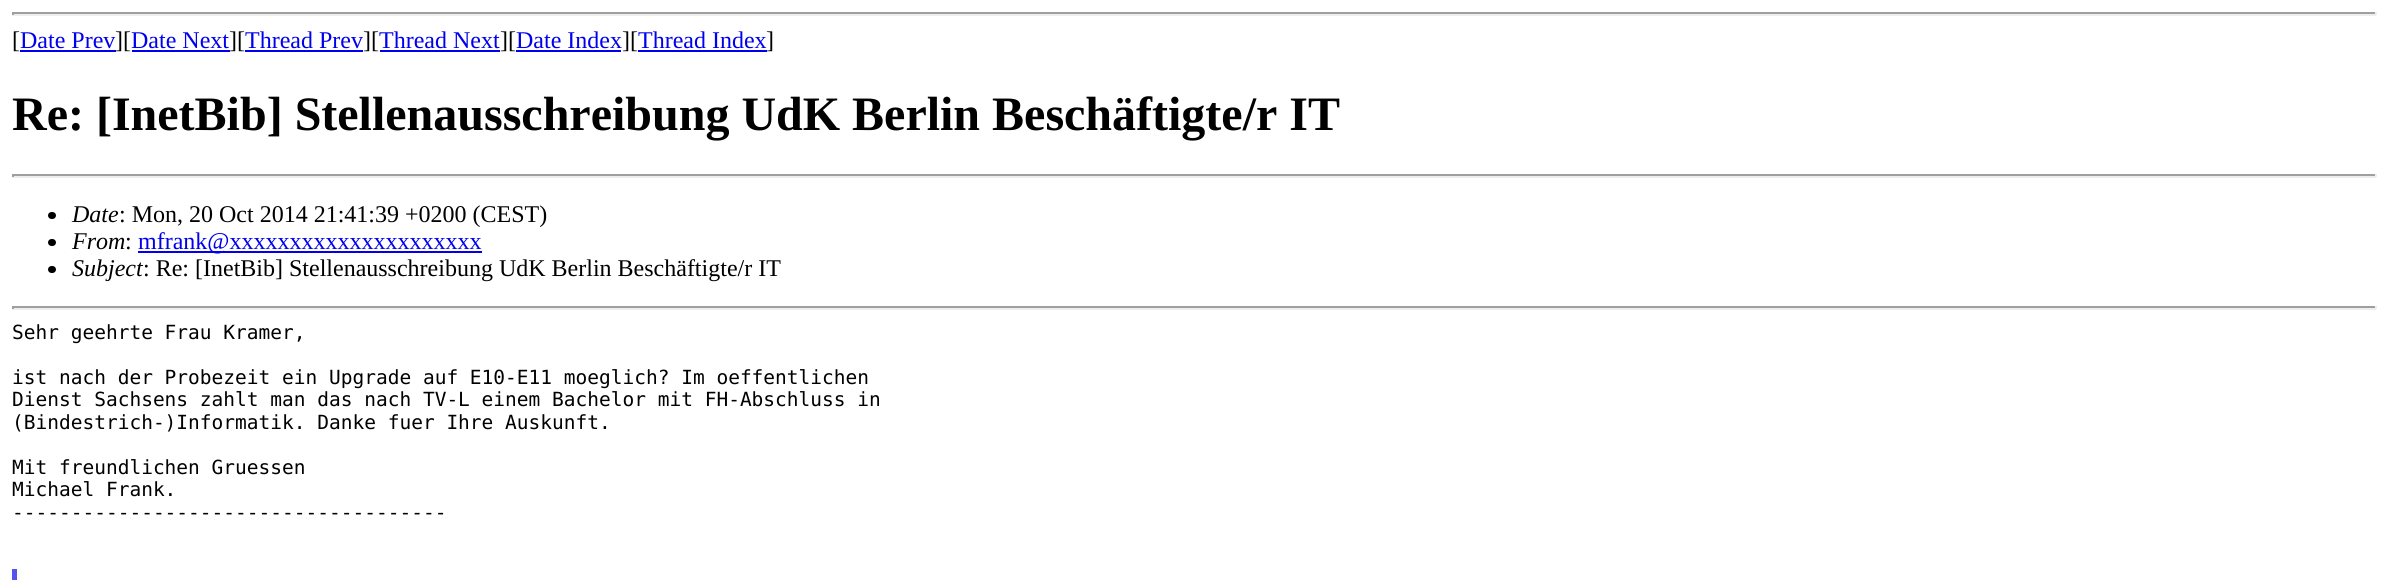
#include <cairo.h>
#include <math.h>
#include <stddef.h>

static cairo_t *ctx;

static void use_color(int r, int g, int b) {
    cairo_set_source_rgb(ctx, r / 255.0, g / 255.0, b / 255.0);
}

static void round_rect(double x, double y, double w, double h, double r) {
    cairo_new_sub_path(ctx);
    cairo_arc(ctx, x + w - r, y + h - r, r, 0, M_PI / 2);
    cairo_arc(ctx, x + r, y + h - r, r, M_PI / 2, M_PI);
    cairo_arc(ctx, x + r, y + r, r, M_PI, 1.5 * M_PI);
    cairo_arc(ctx, x + w - r, y + r, r, 1.5 * M_PI, 2 * M_PI);
    cairo_close_path(ctx);
}

int main(void) {
    cairo_surface_t *surface = cairo_image_surface_create(CAIRO_FORMAT_RGB24, 2387, 580);
    ctx = cairo_create(surface);
    cairo_font_options_t *options = cairo_font_options_create();
    cairo_font_options_set_hint_metrics(options, CAIRO_HINT_METRICS_OFF);
    cairo_font_options_set_hint_style(options, CAIRO_HINT_STYLE_NONE);
    cairo_set_font_options(ctx, options);
    cairo_set_miter_limit(ctx, 4);
    use_color(255, 255, 255);
    cairo_paint(ctx);
    use_color(159, 159, 159);
    cairo_rectangle(ctx, 12, 12, 2364, 2);
    cairo_fill(ctx);
    use_color(238, 238, 238);
    cairo_rectangle(ctx, 2375, 12, 2, 3);
    cairo_fill(ctx);
    cairo_rectangle(ctx, 12, 14, 2364, 2);
    cairo_fill(ctx);
    use_color(159, 159, 159);
    cairo_rectangle(ctx, 12, 12, 2, 3);
    cairo_fill(ctx);
    cairo_select_font_face(ctx, "Liberation Serif", CAIRO_FONT_SLANT_NORMAL, CAIRO_FONT_WEIGHT_NORMAL);
    cairo_set_font_size(ctx, 24);
    use_color(0, 0, 0);
    cairo_move_to(ctx, 12, 48);
    cairo_show_text(ctx, "[");
    use_color(0, 0, 238);
    cairo_move_to(ctx, 20, 48);
    cairo_show_text(ctx, "Date Prev");
    cairo_rectangle(ctx, 20, 50, 96, 2);
    cairo_fill(ctx);
    use_color(0, 0, 0);
    cairo_move_to(ctx, 115, 48);
    cairo_show_text(ctx, "][");
    use_color(0, 0, 238);
    cairo_move_to(ctx, 131, 48);
    cairo_show_text(ctx, "Date Next");
    cairo_rectangle(ctx, 132, 50, 98, 2);
    cairo_fill(ctx);
    use_color(0, 0, 0);
    cairo_move_to(ctx, 229, 48);
    cairo_show_text(ctx, "][");
    use_color(0, 0, 238);
    cairo_move_to(ctx, 245, 48);
    cairo_show_text(ctx, "Thread Prev");
    cairo_rectangle(ctx, 245, 50, 118, 2);
    cairo_fill(ctx);
    use_color(0, 0, 0);
    cairo_move_to(ctx, 363, 48);
    cairo_show_text(ctx, "][");
    use_color(0, 0, 238);
    cairo_move_to(ctx, 379, 48);
    cairo_show_text(ctx, "Thread Next");
    cairo_rectangle(ctx, 380, 50, 120, 2);
    cairo_fill(ctx);
    use_color(0, 0, 0);
    cairo_move_to(ctx, 500, 48);
    cairo_show_text(ctx, "][");
    use_color(0, 0, 238);
    cairo_move_to(ctx, 516, 48);
    cairo_show_text(ctx, "Date Index");
    cairo_rectangle(ctx, 516, 50, 105, 2);
    cairo_fill(ctx);
    use_color(0, 0, 0);
    cairo_move_to(ctx, 622, 48);
    cairo_show_text(ctx, "][");
    use_color(0, 0, 238);
    cairo_move_to(ctx, 638, 48);
    cairo_show_text(ctx, "Thread Index");
    cairo_rectangle(ctx, 638, 50, 129, 2);
    cairo_fill(ctx);
    use_color(0, 0, 0);
    cairo_move_to(ctx, 766, 48);
    cairo_show_text(ctx, "]");
    cairo_select_font_face(ctx, "Liberation Serif", CAIRO_FONT_SLANT_NORMAL, CAIRO_FONT_WEIGHT_BOLD);
    cairo_set_font_size(ctx, 48);
    cairo_move_to(ctx, 12, 130);
    cairo_show_text(ctx, "Re: [InetBib] Stellenausschreibung UdK Berlin Beschäftigte/r IT");
    use_color(159, 159, 159);
    cairo_rectangle(ctx, 12, 174, 2364, 2);
    cairo_fill(ctx);
    use_color(238, 238, 238);
    cairo_rectangle(ctx, 2375, 174, 2, 3);
    cairo_fill(ctx);
    cairo_rectangle(ctx, 12, 176, 2364, 2);
    cairo_fill(ctx);
    use_color(159, 159, 159);
    cairo_rectangle(ctx, 12, 174, 2, 3);
    cairo_fill(ctx);
    use_color(0, 0, 0);
    round_rect(48, 212, 8, 7, 3.5);
    cairo_fill(ctx);
    cairo_select_font_face(ctx, "Liberation Serif", CAIRO_FONT_SLANT_ITALIC, CAIRO_FONT_WEIGHT_NORMAL);
    cairo_set_font_size(ctx, 24);
    cairo_move_to(ctx, 72, 222);
    cairo_show_text(ctx, "Date");
    cairo_select_font_face(ctx, "Liberation Serif", CAIRO_FONT_SLANT_NORMAL, CAIRO_FONT_WEIGHT_NORMAL);
    cairo_move_to(ctx, 119, 222);
    cairo_show_text(ctx, ": Mon, 20 Oct 2014 21:41:39 +0200 (CEST)");
    round_rect(48, 239, 8, 7, 3.5);
    cairo_fill(ctx);
    cairo_select_font_face(ctx, "Liberation Serif", CAIRO_FONT_SLANT_ITALIC, CAIRO_FONT_WEIGHT_NORMAL);
    cairo_move_to(ctx, 72, 249);
    cairo_show_text(ctx, "From");
    cairo_select_font_face(ctx, "Liberation Serif", CAIRO_FONT_SLANT_NORMAL, CAIRO_FONT_WEIGHT_NORMAL);
    cairo_move_to(ctx, 125, 249);
    cairo_show_text(ctx, ":");
    use_color(0, 0, 238);
    cairo_rectangle(ctx, 138, 251, 344, 2);
    cairo_fill(ctx);
    cairo_move_to(ctx, 138, 249);
    cairo_show_text(ctx, "mfrank@xxxxxxxxxxxxxxxxxxxxx");
    use_color(0, 0, 0);
    round_rect(48, 266, 8, 7, 3.5);
    cairo_fill(ctx);
    cairo_select_font_face(ctx, "Liberation Serif", CAIRO_FONT_SLANT_ITALIC, CAIRO_FONT_WEIGHT_NORMAL);
    cairo_move_to(ctx, 72, 276);
    cairo_show_text(ctx, "Subject");
    cairo_select_font_face(ctx, "Liberation Serif", CAIRO_FONT_SLANT_NORMAL, CAIRO_FONT_WEIGHT_NORMAL);
    cairo_move_to(ctx, 143, 276);
    cairo_show_text(ctx, ": Re: [InetBib] Stellenausschreibung UdK Berlin Beschäftigte/r IT");
    use_color(159, 159, 159);
    cairo_rectangle(ctx, 12, 306, 2364, 2);
    cairo_fill(ctx);
    use_color(238, 238, 238);
    cairo_rectangle(ctx, 2375, 306, 2, 3);
    cairo_fill(ctx);
    cairo_rectangle(ctx, 12, 308, 2364, 2);
    cairo_fill(ctx);
    use_color(159, 159, 159);
    cairo_rectangle(ctx, 12, 306, 2, 3);
    cairo_fill(ctx);
    cairo_select_font_face(ctx, "DejaVu Sans Mono", CAIRO_FONT_SLANT_NORMAL, CAIRO_FONT_WEIGHT_NORMAL);
    cairo_set_font_size(ctx, 19.5);
    use_color(0, 0, 0);
    cairo_move_to(ctx, 12, 339);
    cairo_show_text(ctx, "Sehr geehrte Frau Kramer,");
    cairo_move_to(ctx, 12, 384);
    cairo_show_text(ctx, "ist nach der Probezeit ein Upgrade auf E10-E11 moeglich? Im oeffentlichen");
    cairo_move_to(ctx, 12, 406);
    cairo_show_text(ctx, "Dienst Sachsens zahlt man das nach TV-L einem Bachelor mit FH-Abschluss in");
    cairo_move_to(ctx, 12, 429);
    cairo_show_text(ctx, "(Bindestrich-)Informatik. Danke fuer Ihre Auskunft.");
    cairo_move_to(ctx, 12, 474);
    cairo_show_text(ctx, "Mit freundlichen Gruessen");
    cairo_move_to(ctx, 12, 496);
    cairo_show_text(ctx, "Michael Frank.");
    cairo_move_to(ctx, 12, 519);
    cairo_show_text(ctx, "-------------------------------------");
    use_color(85, 85, 238);
    cairo_rectangle(ctx, 12, 569, 5, 11);
    cairo_fill(ctx);
    cairo_surface_write_to_png(surface, "result.png");
    cairo_font_options_destroy(options);
    cairo_destroy(ctx);
    cairo_surface_destroy(surface);
    return 0;
}
